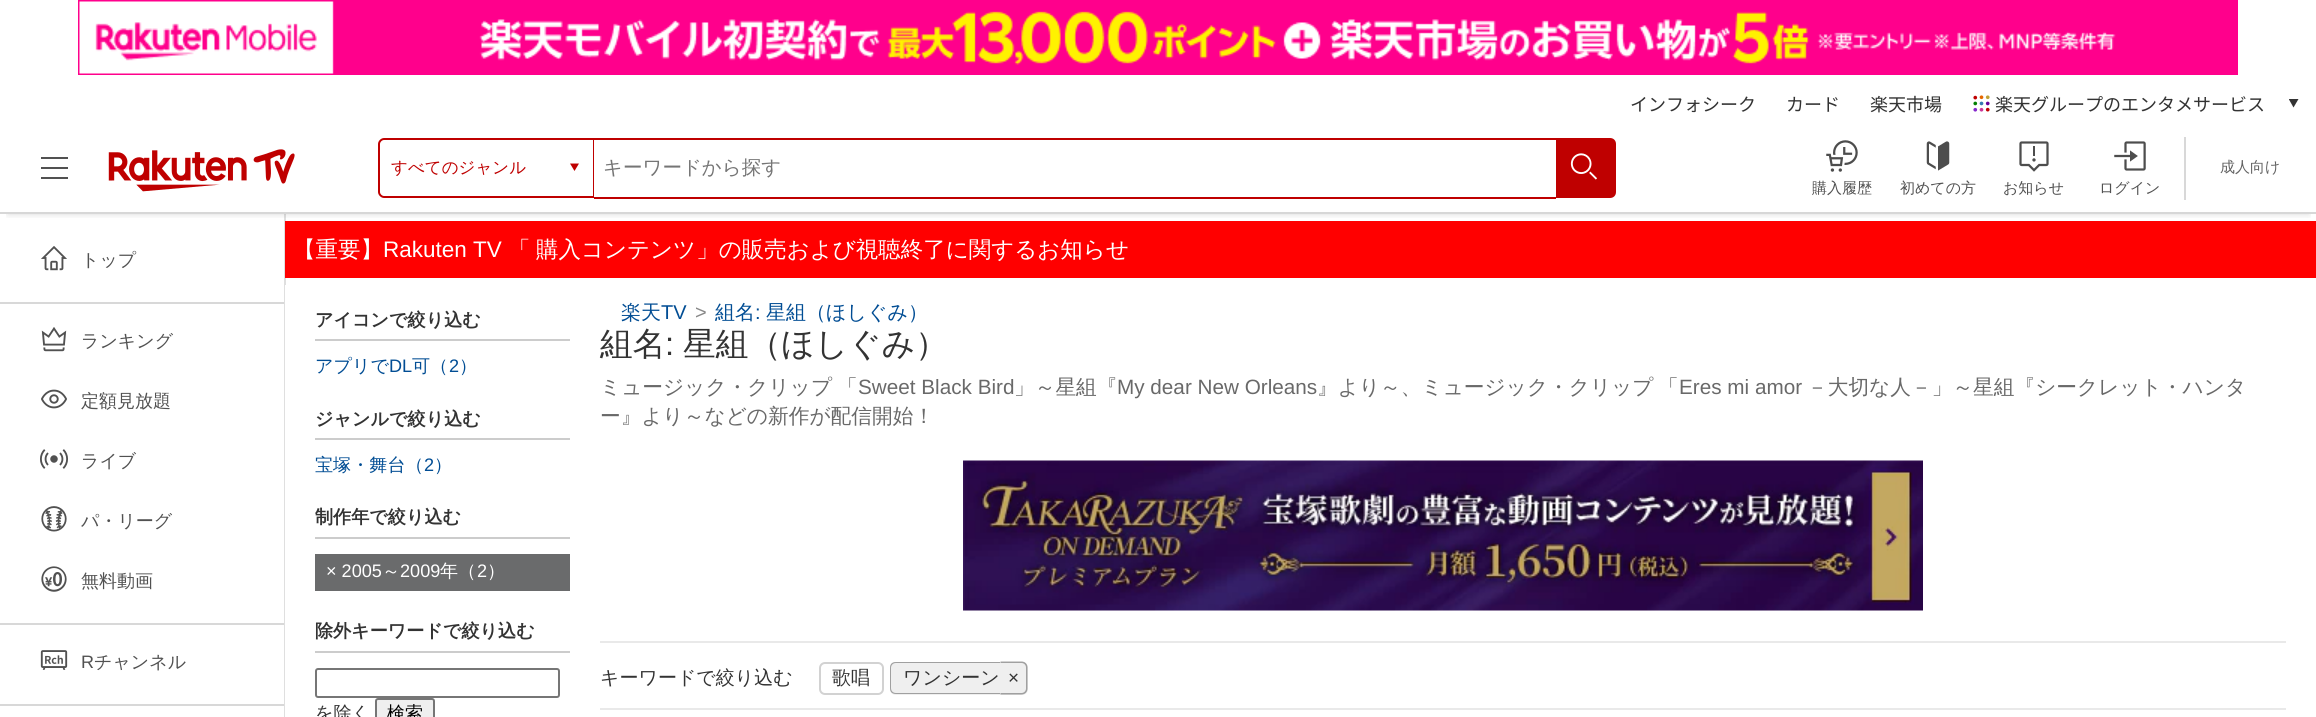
#include <cairo.h>
#include <math.h>
#include <stddef.h>

static cairo_t *ctx;

static void use_color(int r, int g, int b) {
    cairo_set_source_rgb(ctx, r / 255.0, g / 255.0, b / 255.0);
}

static void round_rect(double x, double y, double w, double h, double r) {
    cairo_new_sub_path(ctx);
    cairo_arc(ctx, x + w - r, y + h - r, r, 0, M_PI / 2);
    cairo_arc(ctx, x + r, y + h - r, r, M_PI / 2, M_PI);
    cairo_arc(ctx, x + r, y + r, r, M_PI, 1.5 * M_PI);
    cairo_arc(ctx, x + w - r, y + r, r, 1.5 * M_PI, 2 * M_PI);
    cairo_close_path(ctx);
}

static void shadow(double x, double y, double w, double h, double r, double blur, double alpha) {
    cairo_push_group_with_content(ctx, CAIRO_CONTENT_ALPHA);
    cairo_set_operator(ctx, CAIRO_OPERATOR_SOURCE);
    for (int i = 15; i >= -15 && fmin(w, h) + blur * i / 3 > 0; i -= 2) {
        double e = blur * i / 6;
        cairo_set_source_rgba(ctx, 0, 0, 0, alpha * erfc((i - 1) / 8.5) / 2);
        round_rect(x - e, y - e, w + 2 * e, h + 2 * e, fmax(0, fmin(r + e + blur * .6, fmin(w, h) / 2 + e)));
        cairo_fill(ctx);
    }
    cairo_pattern_t *soft = cairo_pop_group(ctx);
    cairo_mask(ctx, soft);
    cairo_pattern_destroy(soft);
}

static void picture(const char *path, double x, double y, double w, double h) {
    cairo_surface_t *image = cairo_image_surface_create_from_png(path);
    cairo_save(ctx);
    cairo_set_source_surface(ctx, image, x, y);
    cairo_rectangle(ctx, x, y, w, h);
    cairo_fill(ctx);
    cairo_restore(ctx);
    cairo_surface_destroy(image);
}

int main(void) {
    cairo_surface_t *surface = cairo_image_surface_create(CAIRO_FORMAT_RGB24, 2316, 717);
    ctx = cairo_create(surface);
    cairo_font_options_t *options = cairo_font_options_create();
    cairo_font_options_set_hint_metrics(options, CAIRO_HINT_METRICS_OFF);
    cairo_font_options_set_hint_style(options, CAIRO_HINT_STYLE_NONE);
    cairo_set_font_options(ctx, options);
    cairo_set_miter_limit(ctx, 4);
    use_color(255, 255, 255);
    cairo_paint(ctx);
    picture("img1.png", 78, 0, 2160, 75);
    cairo_select_font_face(ctx, "Noto Sans JP", CAIRO_FONT_SLANT_NORMAL, CAIRO_FONT_WEIGHT_NORMAL);
    cairo_set_font_size(ctx, 18);
    use_color(51, 51, 51);
    cairo_move_to(ctx, 1630, 111);
    cairo_show_text(ctx, "インフォシーク");
    cairo_move_to(ctx, 1786, 111);
    cairo_show_text(ctx, "カード");
    cairo_move_to(ctx, 1870, 111);
    cairo_show_text(ctx, "楽天市場");
    picture("img2.png", 1973, 95, 17, 17);
    cairo_move_to(ctx, 1995, 111);
    cairo_show_text(ctx, "楽天グループのエンタメサービス");
    cairo_new_path(ctx);
    cairo_move_to(ctx, 2289, 99);
    cairo_line_to(ctx, 2298.5, 99);
    cairo_line_to(ctx, 2293.5, 107.5);
    cairo_line_to(ctx, 2289, 99.5);
    cairo_close_path(ctx);
    cairo_fill(ctx);
    use_color(223, 223, 223);
    cairo_rectangle(ctx, 284, 213, 2, 504);
    cairo_fill(ctx);
    use_color(255, 0, 0);
    cairo_rectangle(ctx, 285, 221, 2031, 57);
    cairo_fill(ctx);
    cairo_save(ctx);
    cairo_rectangle(ctx, 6, 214, 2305, 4);
    cairo_clip(ctx);
    use_color(0, 0, 0);
    shadow(8, 138, 2301, 75, 0, 4, 0.2);
    cairo_restore(ctx);
    use_color(215, 215, 215);
    cairo_rectangle(ctx, 0, 212, 2316, 2);
    cairo_fill(ctx);
    use_color(81, 81, 81);
    cairo_rectangle(ctx, 41, 157, 27, 2);
    cairo_fill(ctx);
    cairo_rectangle(ctx, 41, 167, 27, 2);
    cairo_fill(ctx);
    cairo_rectangle(ctx, 41, 177, 27, 2);
    cairo_fill(ctx);
    picture("img3.png", 108, 149, 187, 43);
    use_color(191, 0, 0);
    cairo_set_fill_rule(ctx, CAIRO_FILL_RULE_EVEN_ODD);
    cairo_new_path(ctx);
    cairo_move_to(ctx, 384, 138);
    cairo_line_to(ctx, 594, 138);
    cairo_line_to(ctx, 594, 198);
    cairo_line_to(ctx, 384, 198);
    cairo_curve_to(ctx, 381, 198, 378, 195, 378, 192);
    cairo_line_to(ctx, 378, 144);
    cairo_curve_to(ctx, 378, 141, 381, 138, 384, 138);
    cairo_close_path(ctx);
    cairo_move_to(ctx, 384, 140);
    cairo_line_to(ctx, 594, 140);
    cairo_line_to(ctx, 594, 196);
    cairo_line_to(ctx, 384, 196);
    cairo_curve_to(ctx, 382, 196, 380, 194, 380, 192);
    cairo_line_to(ctx, 380, 144);
    cairo_curve_to(ctx, 380, 142, 382, 140, 384, 140);
    cairo_close_path(ctx);
    cairo_fill(ctx);
    cairo_select_font_face(ctx, "WenQuanYi Zen Hei Medium", CAIRO_FONT_SLANT_NORMAL, CAIRO_FONT_WEIGHT_NORMAL);
    cairo_set_font_size(ctx, 16.5);
    cairo_move_to(ctx, 391, 173);
    cairo_show_text(ctx, "すべてのジャンル");
    cairo_set_fill_rule(ctx, CAIRO_FILL_RULE_WINDING);
    cairo_new_path(ctx);
    cairo_move_to(ctx, 570, 163.5);
    cairo_line_to(ctx, 579, 163.5);
    cairo_line_to(ctx, 574.5, 171);
    cairo_close_path(ctx);
    cairo_fill(ctx);
    cairo_rectangle(ctx, 593, 140, 1, 58);
    cairo_fill(ctx);
    cairo_rectangle(ctx, 594, 138, 962, 2);
    cairo_fill(ctx);
    cairo_rectangle(ctx, 594, 197, 962, 2);
    cairo_fill(ctx);
    cairo_set_font_size(ctx, 19.5);
    use_color(117, 117, 117);
    cairo_move_to(ctx, 603, 174);
    cairo_show_text(ctx, "キーワードから探す");
    use_color(191, 0, 0);
    cairo_new_path(ctx);
    cairo_move_to(ctx, 1556, 138);
    cairo_line_to(ctx, 1610, 138);
    cairo_curve_to(ctx, 1613.5, 138, 1616, 140.5, 1616, 144);
    cairo_line_to(ctx, 1616, 192);
    cairo_curve_to(ctx, 1616, 195.5, 1613.5, 198, 1610, 198);
    cairo_line_to(ctx, 1556, 198);
    cairo_close_path(ctx);
    cairo_fill(ctx);
    picture("img4.png", 1570, 153, 27, 27);
    use_color(216, 216, 216);
    cairo_rectangle(ctx, 2184, 137, 2, 63);
    cairo_fill(ctx);
    cairo_set_font_size(ctx, 15);
    use_color(98, 98, 98);
    cairo_move_to(ctx, 2220, 172);
    cairo_show_text(ctx, "成人向け");
    picture("img5.png", 1826, 140, 32, 32);
    use_color(81, 81, 81);
    cairo_move_to(ctx, 1812, 193);
    cairo_show_text(ctx, "購入履歴");
    picture("img6.png", 1926, 141, 24, 30);
    cairo_move_to(ctx, 1900, 193);
    cairo_show_text(ctx, "初めての方");
    picture("img7.png", 2019, 141, 30, 31);
    cairo_move_to(ctx, 2003, 193);
    cairo_show_text(ctx, "お知らせ");
    picture("img8.png", 2114, 141, 32, 30);
    cairo_move_to(ctx, 2099, 193);
    cairo_show_text(ctx, "ログイン");
    picture("img9.png", 41, 246, 26, 25);
    cairo_set_font_size(ctx, 18);
    cairo_move_to(ctx, 81, 266);
    cairo_show_text(ctx, "トップ");
    use_color(216, 216, 216);
    cairo_rectangle(ctx, 0, 302, 284, 2);
    cairo_fill(ctx);
    picture("img10.png", 41, 327, 26, 25);
    use_color(81, 81, 81);
    cairo_move_to(ctx, 81, 347);
    cairo_show_text(ctx, "ランキング");
    picture("img11.png", 41, 389, 26, 20);
    cairo_move_to(ctx, 81, 407);
    cairo_show_text(ctx, "定額見放題");
    picture("img12.png", 40, 449, 28, 20);
    cairo_move_to(ctx, 81, 467);
    cairo_show_text(ctx, "ライブ");
    picture("img13.png", 41, 506, 26, 26);
    cairo_move_to(ctx, 81, 527);
    cairo_show_text(ctx, "パ・リーグ");
    picture("img14.png", 41, 566, 26, 26);
    cairo_move_to(ctx, 81, 587);
    cairo_show_text(ctx, "無料動画");
    use_color(216, 216, 216);
    cairo_rectangle(ctx, 0, 623, 284, 2);
    cairo_fill(ctx);
    picture("img15.png", 40, 650, 28, 20);
    cairo_select_font_face(ctx, "Liberation Sans", CAIRO_FONT_SLANT_NORMAL, CAIRO_FONT_WEIGHT_NORMAL);
    use_color(81, 81, 81);
    cairo_move_to(ctx, 81, 668);
    cairo_show_text(ctx, "R");
    cairo_select_font_face(ctx, "WenQuanYi Zen Hei Medium", CAIRO_FONT_SLANT_NORMAL, CAIRO_FONT_WEIGHT_NORMAL);
    cairo_move_to(ctx, 94, 668);
    cairo_show_text(ctx, "チャンネル");
    use_color(216, 216, 216);
    cairo_rectangle(ctx, 0, 704, 284, 2);
    cairo_fill(ctx);
    cairo_set_font_size(ctx, 22.5);
    use_color(255, 255, 255);
    cairo_move_to(ctx, 293, 257);
    cairo_show_text(ctx, "【重要】");
    cairo_select_font_face(ctx, "Liberation Sans", CAIRO_FONT_SLANT_NORMAL, CAIRO_FONT_WEIGHT_NORMAL);
    cairo_move_to(ctx, 383, 257);
    cairo_show_text(ctx, "Rakuten TV");
    cairo_select_font_face(ctx, "WenQuanYi Zen Hei Medium", CAIRO_FONT_SLANT_NORMAL, CAIRO_FONT_WEIGHT_NORMAL);
    cairo_move_to(ctx, 508, 257);
    cairo_show_text(ctx, "「");
    cairo_move_to(ctx, 536, 257);
    cairo_show_text(ctx, "購入コンテンツ」の販売および視聴終了に関するお知らせ");
    cairo_rectangle(ctx, 285, 285, 1, 432);
    cairo_fill(ctx);
    use_color(204, 204, 204);
    cairo_rectangle(ctx, 315, 339, 255, 2);
    cairo_fill(ctx);
    cairo_select_font_face(ctx, "WenQuanYi Zen Hei", CAIRO_FONT_SLANT_NORMAL, CAIRO_FONT_WEIGHT_BOLD);
    cairo_set_font_size(ctx, 18.1);
    use_color(51, 51, 51);
    cairo_move_to(ctx, 315, 326);
    cairo_show_text(ctx, "アイコンで絞り込む");
    cairo_select_font_face(ctx, "WenQuanYi Zen Hei Medium", CAIRO_FONT_SLANT_NORMAL, CAIRO_FONT_WEIGHT_NORMAL);
    use_color(1, 77, 148);
    cairo_move_to(ctx, 315, 372);
    cairo_show_text(ctx, "アプリで");
    cairo_select_font_face(ctx, "Liberation Sans", CAIRO_FONT_SLANT_NORMAL, CAIRO_FONT_WEIGHT_NORMAL);
    cairo_move_to(ctx, 389, 372);
    cairo_show_text(ctx, "DL");
    cairo_select_font_face(ctx, "WenQuanYi Zen Hei Medium", CAIRO_FONT_SLANT_NORMAL, CAIRO_FONT_WEIGHT_NORMAL);
    cairo_move_to(ctx, 412, 372);
    cairo_show_text(ctx, "可（");
    cairo_select_font_face(ctx, "Liberation Sans", CAIRO_FONT_SLANT_NORMAL, CAIRO_FONT_WEIGHT_NORMAL);
    cairo_move_to(ctx, 449, 372);
    cairo_show_text(ctx, "2");
    cairo_select_font_face(ctx, "WenQuanYi Zen Hei Medium", CAIRO_FONT_SLANT_NORMAL, CAIRO_FONT_WEIGHT_NORMAL);
    cairo_move_to(ctx, 459, 372);
    cairo_show_text(ctx, "）");
    use_color(204, 204, 204);
    cairo_rectangle(ctx, 315, 438, 255, 2);
    cairo_fill(ctx);
    cairo_select_font_face(ctx, "WenQuanYi Zen Hei", CAIRO_FONT_SLANT_NORMAL, CAIRO_FONT_WEIGHT_BOLD);
    use_color(51, 51, 51);
    cairo_move_to(ctx, 315, 425);
    cairo_show_text(ctx, "ジャンルで絞り込む");
    cairo_select_font_face(ctx, "WenQuanYi Zen Hei Medium", CAIRO_FONT_SLANT_NORMAL, CAIRO_FONT_WEIGHT_NORMAL);
    use_color(1, 77, 148);
    cairo_move_to(ctx, 315, 471);
    cairo_show_text(ctx, "宝塚・舞台（");
    cairo_select_font_face(ctx, "Liberation Sans", CAIRO_FONT_SLANT_NORMAL, CAIRO_FONT_WEIGHT_NORMAL);
    cairo_move_to(ctx, 424, 471);
    cairo_show_text(ctx, "2");
    cairo_select_font_face(ctx, "WenQuanYi Zen Hei Medium", CAIRO_FONT_SLANT_NORMAL, CAIRO_FONT_WEIGHT_NORMAL);
    cairo_move_to(ctx, 434, 471);
    cairo_show_text(ctx, "）");
    use_color(204, 204, 204);
    cairo_rectangle(ctx, 315, 537, 255, 2);
    cairo_fill(ctx);
    cairo_select_font_face(ctx, "WenQuanYi Zen Hei", CAIRO_FONT_SLANT_NORMAL, CAIRO_FONT_WEIGHT_BOLD);
    use_color(51, 51, 51);
    cairo_move_to(ctx, 315, 523);
    cairo_show_text(ctx, "制作年で絞り込む");
    use_color(106, 107, 108);
    cairo_rectangle(ctx, 315, 554, 255, 37);
    cairo_fill(ctx);
    cairo_select_font_face(ctx, "Liberation Sans", CAIRO_FONT_SLANT_NORMAL, CAIRO_FONT_WEIGHT_NORMAL);
    use_color(255, 255, 255);
    cairo_move_to(ctx, 326, 577);
    cairo_show_text(ctx, "× 2005");
    cairo_select_font_face(ctx, "WenQuanYi Zen Hei Medium", CAIRO_FONT_SLANT_NORMAL, CAIRO_FONT_WEIGHT_NORMAL);
    cairo_move_to(ctx, 382, 577);
    cairo_show_text(ctx, "～");
    cairo_select_font_face(ctx, "Liberation Sans", CAIRO_FONT_SLANT_NORMAL, CAIRO_FONT_WEIGHT_NORMAL);
    cairo_move_to(ctx, 400, 577);
    cairo_show_text(ctx, "2009");
    cairo_select_font_face(ctx, "WenQuanYi Zen Hei Medium", CAIRO_FONT_SLANT_NORMAL, CAIRO_FONT_WEIGHT_NORMAL);
    cairo_move_to(ctx, 440, 577);
    cairo_show_text(ctx, "年（");
    cairo_select_font_face(ctx, "Liberation Sans", CAIRO_FONT_SLANT_NORMAL, CAIRO_FONT_WEIGHT_NORMAL);
    cairo_move_to(ctx, 477, 577);
    cairo_show_text(ctx, "2");
    cairo_select_font_face(ctx, "WenQuanYi Zen Hei Medium", CAIRO_FONT_SLANT_NORMAL, CAIRO_FONT_WEIGHT_NORMAL);
    cairo_move_to(ctx, 487, 577);
    cairo_show_text(ctx, "）");
    use_color(204, 204, 204);
    cairo_rectangle(ctx, 315, 651, 255, 2);
    cairo_fill(ctx);
    cairo_select_font_face(ctx, "WenQuanYi Zen Hei", CAIRO_FONT_SLANT_NORMAL, CAIRO_FONT_WEIGHT_BOLD);
    use_color(51, 51, 51);
    cairo_move_to(ctx, 315, 637);
    cairo_show_text(ctx, "除外キーワードで絞り込む");
    round_rect(316, 669, 243, 28, 2);
    use_color(118, 118, 118);
    cairo_stroke(ctx);
    cairo_select_font_face(ctx, "WenQuanYi Zen Hei Medium", CAIRO_FONT_SLANT_NORMAL, CAIRO_FONT_WEIGHT_NORMAL);
    use_color(51, 51, 51);
    cairo_move_to(ctx, 315, 719);
    cairo_show_text(ctx, "を除く");
    use_color(239, 239, 239);
    round_rect(376, 699, 58, 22, 2);
    cairo_fill_preserve(ctx);
    use_color(118, 118, 118);
    cairo_stroke(ctx);
    cairo_set_font_size(ctx, 18);
    use_color(0, 0, 0);
    cairo_move_to(ctx, 387, 719);
    cairo_show_text(ctx, "検索");
    cairo_set_font_size(ctx, 20);
    use_color(1, 77, 148);
    cairo_move_to(ctx, 621, 319);
    cairo_show_text(ctx, "楽天");
    cairo_select_font_face(ctx, "Liberation Sans", CAIRO_FONT_SLANT_NORMAL, CAIRO_FONT_WEIGHT_NORMAL);
    cairo_move_to(ctx, 661, 319);
    cairo_show_text(ctx, "TV");
    use_color(136, 136, 136);
    cairo_move_to(ctx, 695, 319);
    cairo_show_text(ctx, ">");
    cairo_select_font_face(ctx, "WenQuanYi Zen Hei Medium", CAIRO_FONT_SLANT_NORMAL, CAIRO_FONT_WEIGHT_NORMAL);
    use_color(1, 77, 148);
    cairo_move_to(ctx, 715, 319);
    cairo_show_text(ctx, "組名");
    cairo_select_font_face(ctx, "Liberation Sans", CAIRO_FONT_SLANT_NORMAL, CAIRO_FONT_WEIGHT_NORMAL);
    cairo_move_to(ctx, 755, 319);
    cairo_show_text(ctx, ":");
    cairo_select_font_face(ctx, "WenQuanYi Zen Hei Medium", CAIRO_FONT_SLANT_NORMAL, CAIRO_FONT_WEIGHT_NORMAL);
    cairo_move_to(ctx, 766, 319);
    cairo_show_text(ctx, "星組（ほしぐみ）");
    cairo_set_font_size(ctx, 32.75);
    use_color(51, 51, 51);
    cairo_move_to(ctx, 600, 355);
    cairo_show_text(ctx, "組名");
    cairo_select_font_face(ctx, "Liberation Sans", CAIRO_FONT_SLANT_NORMAL, CAIRO_FONT_WEIGHT_NORMAL);
    cairo_move_to(ctx, 665, 355);
    cairo_show_text(ctx, ":");
    cairo_select_font_face(ctx, "WenQuanYi Zen Hei Medium", CAIRO_FONT_SLANT_NORMAL, CAIRO_FONT_WEIGHT_NORMAL);
    cairo_move_to(ctx, 683, 355);
    cairo_show_text(ctx, "星組（ほしぐみ）");
    cairo_set_font_size(ctx, 20.7);
    use_color(105, 105, 105);
    cairo_move_to(ctx, 600, 394);
    cairo_show_text(ctx, "ミュージック・クリップ");
    cairo_move_to(ctx, 837, 394);
    cairo_show_text(ctx, "「");
    cairo_select_font_face(ctx, "Liberation Sans", CAIRO_FONT_SLANT_NORMAL, CAIRO_FONT_WEIGHT_NORMAL);
    cairo_move_to(ctx, 858, 394);
    cairo_show_text(ctx, "Sweet Black Bird");
    cairo_select_font_face(ctx, "WenQuanYi Zen Hei Medium", CAIRO_FONT_SLANT_NORMAL, CAIRO_FONT_WEIGHT_NORMAL);
    cairo_move_to(ctx, 1014, 394);
    cairo_show_text(ctx, "」～星組『");
    cairo_select_font_face(ctx, "Liberation Sans", CAIRO_FONT_SLANT_NORMAL, CAIRO_FONT_WEIGHT_NORMAL);
    cairo_move_to(ctx, 1117, 394);
    cairo_show_text(ctx, "My dear New Orleans");
    cairo_select_font_face(ctx, "WenQuanYi Zen Hei Medium", CAIRO_FONT_SLANT_NORMAL, CAIRO_FONT_WEIGHT_NORMAL);
    cairo_move_to(ctx, 1317, 394);
    cairo_show_text(ctx, "』より～、ミュージック・クリップ");
    cairo_move_to(ctx, 1658, 394);
    cairo_show_text(ctx, "「");
    cairo_select_font_face(ctx, "Liberation Sans", CAIRO_FONT_SLANT_NORMAL, CAIRO_FONT_WEIGHT_NORMAL);
    cairo_move_to(ctx, 1679, 394);
    cairo_show_text(ctx, "Eres mi amor");
    cairo_select_font_face(ctx, "WenQuanYi Zen Hei Medium", CAIRO_FONT_SLANT_NORMAL, CAIRO_FONT_WEIGHT_NORMAL);
    cairo_move_to(ctx, 1807, 394);
    cairo_show_text(ctx, "－大切な人－」～星組『シークレット・ハンタ");
    cairo_move_to(ctx, 600, 423);
    cairo_show_text(ctx, "ー』より～などの新作が配信開始！");
    picture("img16.png", 963, 460, 960, 151);
    use_color(233, 233, 233);
    cairo_rectangle(ctx, 600, 641, 1686, 2);
    cairo_fill(ctx);
    cairo_set_font_size(ctx, 19);
    use_color(51, 51, 51);
    cairo_move_to(ctx, 600, 684);
    cairo_show_text(ctx, "キーワードで絞り込む");
    round_rect(820, 663, 63, 31, 5);
    use_color(210, 210, 210);
    cairo_stroke(ctx);
    use_color(51, 51, 51);
    cairo_move_to(ctx, 832, 684);
    cairo_show_text(ctx, "歌唱");
    use_color(239, 239, 239);
    cairo_new_path(ctx);
    cairo_move_to(ctx, 896, 662);
    cairo_line_to(ctx, 1001, 662);
    cairo_line_to(ctx, 1001, 695);
    cairo_line_to(ctx, 896, 695);
    cairo_curve_to(ctx, 892.5, 695, 890, 692.5, 890, 689);
    cairo_line_to(ctx, 890, 668);
    cairo_curve_to(ctx, 890, 664.5, 892.5, 662, 896, 662);
    cairo_close_path(ctx);
    cairo_fill(ctx);
    use_color(160, 160, 160);
    cairo_set_fill_rule(ctx, CAIRO_FILL_RULE_EVEN_ODD);
    cairo_new_path(ctx);
    cairo_move_to(ctx, 896, 662);
    cairo_line_to(ctx, 1000, 662);
    cairo_line_to(ctx, 1000, 694);
    cairo_line_to(ctx, 896, 694);
    cairo_curve_to(ctx, 892, 694, 890, 692, 890, 688);
    cairo_line_to(ctx, 890, 668);
    cairo_curve_to(ctx, 890, 664, 892, 662, 896, 662);
    cairo_close_path(ctx);
    cairo_move_to(ctx, 896, 663);
    cairo_line_to(ctx, 1000, 663);
    cairo_line_to(ctx, 1000, 693);
    cairo_line_to(ctx, 896, 693);
    cairo_curve_to(ctx, 893, 693, 891, 691, 891, 688);
    cairo_line_to(ctx, 891, 668);
    cairo_curve_to(ctx, 891, 665, 893, 663, 896, 663);
    cairo_close_path(ctx);
    cairo_fill(ctx);
    use_color(51, 51, 51);
    cairo_move_to(ctx, 903, 684);
    cairo_show_text(ctx, "ワンシーン");
    use_color(239, 239, 239);
    cairo_new_path(ctx);
    cairo_move_to(ctx, 1001, 662);
    cairo_line_to(ctx, 1022, 662);
    cairo_curve_to(ctx, 1025.5, 662, 1028, 664.5, 1028, 668);
    cairo_line_to(ctx, 1028, 689);
    cairo_curve_to(ctx, 1028, 692.5, 1025.5, 695, 1022, 695);
    cairo_line_to(ctx, 1001, 695);
    cairo_close_path(ctx);
    cairo_fill(ctx);
    use_color(160, 160, 160);
    cairo_new_path(ctx);
    cairo_move_to(ctx, 1000.5, 661.5);
    cairo_line_to(ctx, 1021.5, 661.5);
    cairo_curve_to(ctx, 1025, 661.5, 1027.5, 664, 1027.5, 667.5);
    cairo_line_to(ctx, 1027.5, 688.5);
    cairo_curve_to(ctx, 1027.5, 692, 1025, 694.5, 1021.5, 694.5);
    cairo_line_to(ctx, 1000.5, 694.5);
    cairo_close_path(ctx);
    cairo_move_to(ctx, 1000.5, 663);
    cairo_line_to(ctx, 1021.5, 663);
    cairo_curve_to(ctx, 1024, 663, 1026, 665, 1026, 667.5);
    cairo_line_to(ctx, 1026, 688.5);
    cairo_curve_to(ctx, 1026, 691, 1024, 693, 1021.5, 693);
    cairo_line_to(ctx, 1000.5, 693);
    cairo_close_path(ctx);
    cairo_fill(ctx);
    cairo_select_font_face(ctx, "Liberation Sans", CAIRO_FONT_SLANT_NORMAL, CAIRO_FONT_WEIGHT_NORMAL);
    use_color(51, 51, 51);
    cairo_move_to(ctx, 1008, 684);
    cairo_show_text(ctx, "×");
    use_color(233, 233, 233);
    cairo_rectangle(ctx, 600, 708, 1686, 2);
    cairo_fill(ctx);
    cairo_surface_write_to_png(surface, "result.png");
    cairo_font_options_destroy(options);
    cairo_destroy(ctx);
    cairo_surface_destroy(surface);
    return 0;
}
